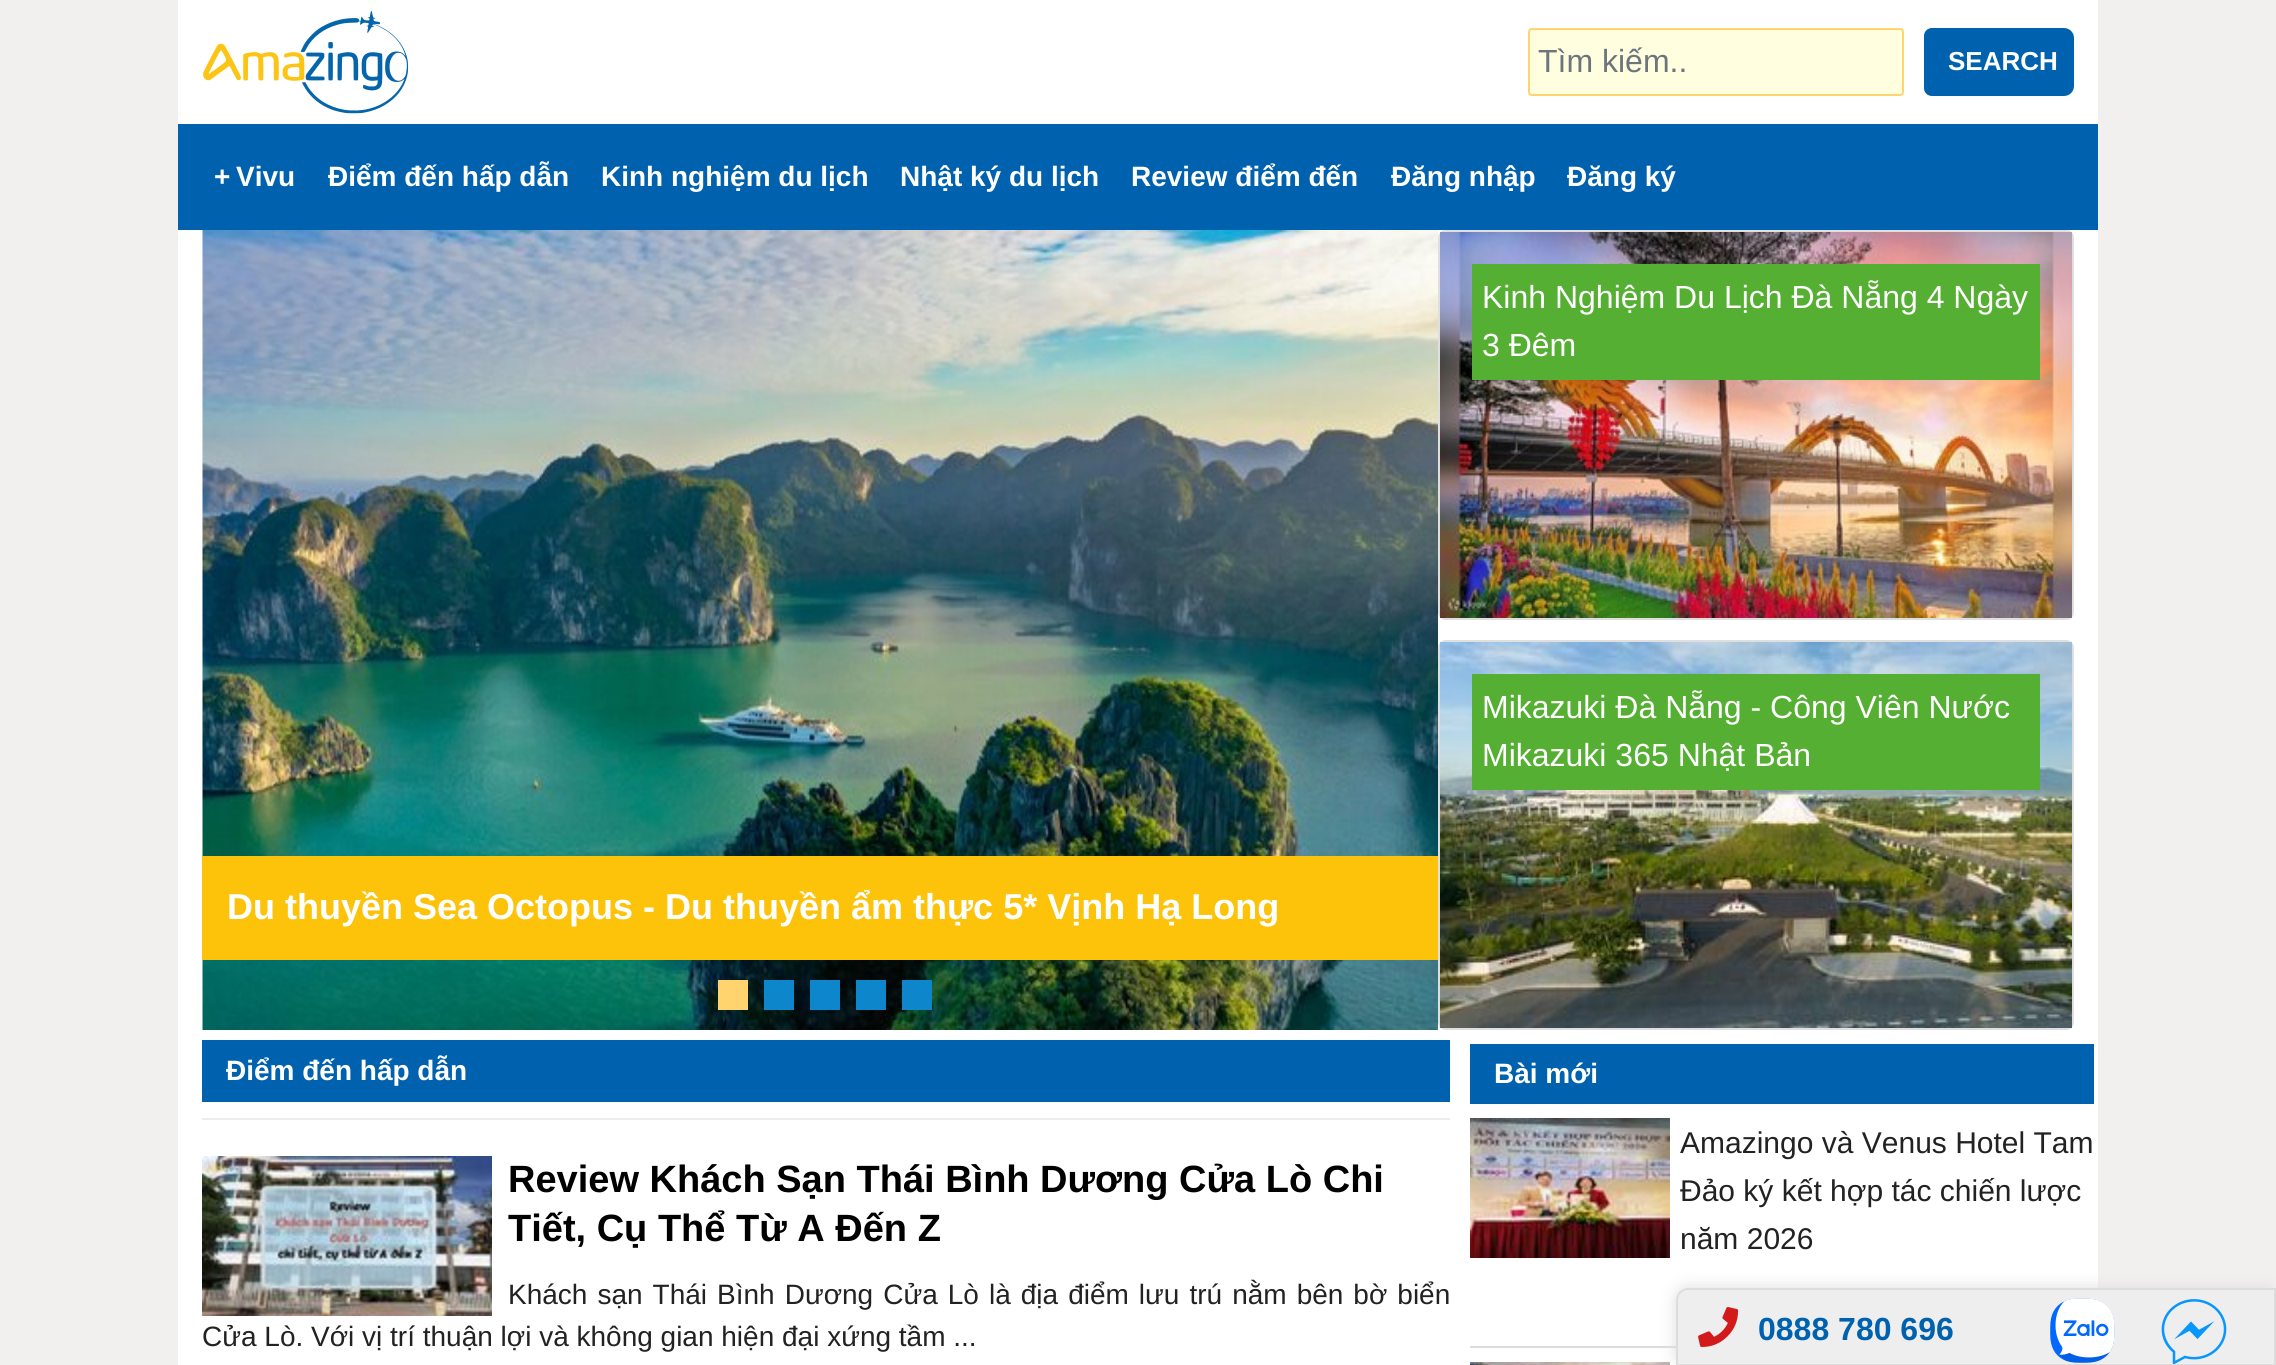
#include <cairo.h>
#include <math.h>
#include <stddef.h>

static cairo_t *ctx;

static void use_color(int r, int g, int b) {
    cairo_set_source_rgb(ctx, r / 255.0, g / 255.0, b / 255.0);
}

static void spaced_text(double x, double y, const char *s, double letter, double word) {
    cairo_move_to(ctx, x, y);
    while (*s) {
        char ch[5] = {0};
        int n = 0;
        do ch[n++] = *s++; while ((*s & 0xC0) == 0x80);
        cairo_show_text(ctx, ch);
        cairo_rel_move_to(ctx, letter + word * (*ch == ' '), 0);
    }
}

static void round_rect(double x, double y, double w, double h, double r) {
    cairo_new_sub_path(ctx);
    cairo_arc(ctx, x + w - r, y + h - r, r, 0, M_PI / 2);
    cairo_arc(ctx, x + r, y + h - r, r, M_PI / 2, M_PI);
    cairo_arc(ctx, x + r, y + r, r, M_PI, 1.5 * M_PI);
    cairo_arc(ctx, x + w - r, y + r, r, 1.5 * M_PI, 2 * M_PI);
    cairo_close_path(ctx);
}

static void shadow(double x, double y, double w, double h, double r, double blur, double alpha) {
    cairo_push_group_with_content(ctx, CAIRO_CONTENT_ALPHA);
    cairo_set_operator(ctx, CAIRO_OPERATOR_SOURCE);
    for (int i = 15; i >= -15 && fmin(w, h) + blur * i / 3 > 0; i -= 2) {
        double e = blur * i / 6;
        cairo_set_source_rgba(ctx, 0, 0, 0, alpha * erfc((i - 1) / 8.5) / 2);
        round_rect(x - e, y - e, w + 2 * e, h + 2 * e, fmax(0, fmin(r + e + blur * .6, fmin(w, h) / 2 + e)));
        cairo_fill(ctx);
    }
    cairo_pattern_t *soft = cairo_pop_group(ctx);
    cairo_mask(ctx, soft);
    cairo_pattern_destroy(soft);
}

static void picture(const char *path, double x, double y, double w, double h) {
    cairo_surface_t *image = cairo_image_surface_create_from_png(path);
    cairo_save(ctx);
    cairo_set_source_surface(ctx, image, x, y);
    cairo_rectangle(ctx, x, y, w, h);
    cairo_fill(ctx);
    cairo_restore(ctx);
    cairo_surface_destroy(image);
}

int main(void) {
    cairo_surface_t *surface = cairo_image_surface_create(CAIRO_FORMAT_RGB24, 2276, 1365);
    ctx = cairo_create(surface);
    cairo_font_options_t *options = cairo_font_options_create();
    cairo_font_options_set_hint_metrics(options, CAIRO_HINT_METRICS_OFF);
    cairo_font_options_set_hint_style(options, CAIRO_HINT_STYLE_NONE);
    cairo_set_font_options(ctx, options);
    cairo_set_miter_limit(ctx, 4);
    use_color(242, 239, 239);
    cairo_paint(ctx);
    use_color(255, 255, 255);
    cairo_rectangle(ctx, 178, 0, 1920, 124);
    cairo_fill(ctx);
    picture("img1.png", 203, 11, 206, 103);
    use_color(255, 254, 223);
    round_rect(1529, 29, 374, 66, 3);
    cairo_fill_preserve(ctx);
    use_color(255, 212, 111);
    cairo_stroke(ctx);
    cairo_select_font_face(ctx, "Liberation Sans", CAIRO_FONT_SLANT_NORMAL, CAIRO_FONT_WEIGHT_NORMAL);
    cairo_set_font_size(ctx, 32);
    use_color(108, 117, 125);
    cairo_move_to(ctx, 1538, 72);
    cairo_show_text(ctx, "Tìm kiếm..");
    use_color(0, 98, 174);
    cairo_new_path(ctx);
    cairo_move_to(ctx, 1932, 28);
    cairo_line_to(ctx, 2064, 28);
    cairo_curve_to(ctx, 2069.5, 28, 2074, 32.5, 2074, 38);
    cairo_line_to(ctx, 2074, 86);
    cairo_curve_to(ctx, 2074, 91.5, 2069.5, 96, 2064, 96);
    cairo_line_to(ctx, 1932, 96);
    cairo_curve_to(ctx, 1927.5, 96, 1924, 92.5, 1924, 88);
    cairo_line_to(ctx, 1924, 36);
    cairo_curve_to(ctx, 1924, 31.5, 1927.5, 28, 1932, 28);
    cairo_close_path(ctx);
    cairo_fill(ctx);
    cairo_select_font_face(ctx, "Liberation Sans", CAIRO_FONT_SLANT_NORMAL, CAIRO_FONT_WEIGHT_BOLD);
    cairo_set_font_size(ctx, 26);
    use_color(255, 255, 255);
    cairo_move_to(ctx, 1948, 70);
    cairo_show_text(ctx, "SEARCH");
    use_color(0, 98, 174);
    cairo_rectangle(ctx, 178, 124, 1920, 106);
    cairo_fill(ctx);
    cairo_set_font_size(ctx, 28);
    use_color(255, 255, 255);
    cairo_move_to(ctx, 214, 186);
    cairo_show_text(ctx, "+");
    cairo_move_to(ctx, 236, 186);
    cairo_show_text(ctx, "Vivu");
    cairo_move_to(ctx, 328, 186);
    cairo_show_text(ctx, "Điểm đến hấp dẫn");
    cairo_move_to(ctx, 601, 186);
    cairo_show_text(ctx, "Kinh nghiệm du lịch");
    cairo_move_to(ctx, 900, 186);
    cairo_show_text(ctx, "Nhật ký du lịch");
    cairo_move_to(ctx, 1131, 186);
    cairo_show_text(ctx, "Review điểm đến");
    cairo_move_to(ctx, 1391, 186);
    cairo_show_text(ctx, "Đăng nhập");
    cairo_move_to(ctx, 1567, 186);
    cairo_show_text(ctx, "Đăng ký");
    cairo_rectangle(ctx, 178, 230, 1920, 1135);
    cairo_fill(ctx);
    round_rect(1439, 231, 634, 388, 7);
    use_color(223, 223, 223);
    cairo_stroke(ctx);
    picture("img2.png", 1440, 232, 632, 386);
    use_color(85, 175, 50);
    cairo_rectangle(ctx, 1472, 264, 568, 116);
    cairo_fill(ctx);
    cairo_select_font_face(ctx, "Liberation Sans", CAIRO_FONT_SLANT_NORMAL, CAIRO_FONT_WEIGHT_NORMAL);
    cairo_set_font_size(ctx, 32);
    use_color(255, 255, 255);
    cairo_move_to(ctx, 1482, 308);
    cairo_show_text(ctx, "Kinh Nghiệm Du Lịch Đà Nẵng 4 Ngày");
    cairo_move_to(ctx, 1482, 356);
    cairo_show_text(ctx, "3 Đêm");
    round_rect(1439, 641, 634, 388, 7);
    use_color(223, 223, 223);
    cairo_stroke(ctx);
    picture("img3.png", 1440, 642, 632, 386);
    use_color(85, 175, 50);
    cairo_rectangle(ctx, 1472, 674, 568, 116);
    cairo_fill(ctx);
    use_color(255, 255, 255);
    cairo_move_to(ctx, 1482, 718);
    cairo_show_text(ctx, "Mikazuki Đà Nẵng - Công Viên Nước");
    cairo_move_to(ctx, 1482, 766);
    cairo_show_text(ctx, "Mikazuki 365 Nhật Bản");
    picture("img4.png", 202, 230, 1236, 800);
    use_color(253, 195, 10);
    cairo_rectangle(ctx, 202, 856, 1236, 104);
    cairo_fill(ctx);
    cairo_select_font_face(ctx, "Liberation Sans", CAIRO_FONT_SLANT_NORMAL, CAIRO_FONT_WEIGHT_BOLD);
    cairo_set_font_size(ctx, 36);
    use_color(255, 255, 255);
    cairo_move_to(ctx, 227, 919);
    cairo_show_text(ctx, "Du thuyền Sea Octopus - Du thuyền ẩm thực 5* Vịnh Hạ Long");
    use_color(255, 212, 111);
    cairo_rectangle(ctx, 718, 980, 30, 30);
    cairo_fill(ctx);
    use_color(13, 134, 204);
    cairo_rectangle(ctx, 764, 980, 30, 30);
    cairo_fill(ctx);
    cairo_rectangle(ctx, 810, 980, 30, 30);
    cairo_fill(ctx);
    cairo_rectangle(ctx, 856, 980, 30, 30);
    cairo_fill(ctx);
    cairo_rectangle(ctx, 902, 980, 30, 30);
    cairo_fill(ctx);
    use_color(0, 98, 174);
    cairo_rectangle(ctx, 202, 1040, 1248, 62);
    cairo_fill(ctx);
    cairo_set_font_size(ctx, 28);
    use_color(255, 255, 255);
    cairo_move_to(ctx, 226, 1080);
    cairo_show_text(ctx, "Điểm đến hấp dẫn");
    use_color(237, 237, 237);
    cairo_rectangle(ctx, 202, 1118, 1248, 2);
    cairo_fill(ctx);
    picture("img5.png", 202, 1156, 290, 160);
    cairo_set_font_size(ctx, 38);
    use_color(0, 0, 0);
    cairo_move_to(ctx, 508, 1192);
    cairo_show_text(ctx, "Review Khách Sạn Thái Bình Dương Cửa Lò Chi");
    cairo_move_to(ctx, 508, 1241);
    cairo_show_text(ctx, "Tiết, Cụ Thể Từ A Đến Z");
    cairo_select_font_face(ctx, "Liberation Sans", CAIRO_FONT_SLANT_NORMAL, CAIRO_FONT_WEIGHT_NORMAL);
    cairo_set_font_size(ctx, 28);
    use_color(34, 34, 34);
    spaced_text(508, 1304, "Khách sạn Thái Bình Dương Cửa Lò là địa điểm lưu trú nằm bên bờ biển", 0, 2.25);
    cairo_move_to(ctx, 202, 1346);
    cairo_show_text(ctx, "Cửa Lò. Với vị trí thuận lợi và không gian hiện đại xứng tầm ...");
    use_color(0, 98, 174);
    cairo_rectangle(ctx, 1470, 1044, 624, 60);
    cairo_fill(ctx);
    cairo_select_font_face(ctx, "Liberation Sans", CAIRO_FONT_SLANT_NORMAL, CAIRO_FONT_WEIGHT_BOLD);
    use_color(255, 255, 255);
    cairo_move_to(ctx, 1494, 1083);
    cairo_show_text(ctx, "Bài mới");
    use_color(220, 220, 220);
    cairo_rectangle(ctx, 1470, 1346, 206, 2);
    cairo_fill(ctx);
    picture("img6.png", 1470, 1118, 200, 140);
    cairo_select_font_face(ctx, "Liberation Sans", CAIRO_FONT_SLANT_NORMAL, CAIRO_FONT_WEIGHT_NORMAL);
    cairo_set_font_size(ctx, 30);
    use_color(34, 34, 34);
    cairo_move_to(ctx, 1680, 1153);
    cairo_show_text(ctx, "Amazingo và Venus Hotel Tam");
    cairo_move_to(ctx, 1680, 1201);
    cairo_show_text(ctx, "Đảo ký kết hợp tác chiến lược");
    cairo_move_to(ctx, 1680, 1249);
    cairo_show_text(ctx, "năm 2026");
    picture("img7.png", 1470, 1362, 200, 3);
    use_color(221, 221, 221);
    shadow(1676, 1288, 600, 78, 12, 8, 1);
    use_color(238, 238, 238);
    cairo_new_path(ctx);
    cairo_move_to(ctx, 1688, 1289);
    cairo_line_to(ctx, 2275, 1289);
    cairo_line_to(ctx, 2275, 1365);
    cairo_line_to(ctx, 1677, 1365);
    cairo_line_to(ctx, 1677, 1300);
    cairo_curve_to(ctx, 1677, 1294, 1682, 1289, 1688, 1289);
    cairo_close_path(ctx);
    cairo_fill_preserve(ctx);
    use_color(221, 221, 221);
    cairo_stroke(ctx);
    picture("img8.png", 1698, 1307, 41, 40);
    cairo_select_font_face(ctx, "Liberation Sans", CAIRO_FONT_SLANT_NORMAL, CAIRO_FONT_WEIGHT_BOLD);
    cairo_set_font_size(ctx, 32);
    use_color(0, 98, 174);
    cairo_move_to(ctx, 1758, 1340);
    cairo_show_text(ctx, "0888 780 696");
    picture("img9.png", 2050, 1298, 65, 65);
    picture("img10.png", 2161, 1299, 66, 65);
    cairo_surface_write_to_png(surface, "result.png");
    cairo_font_options_destroy(options);
    cairo_destroy(ctx);
    cairo_surface_destroy(surface);
    return 0;
}
